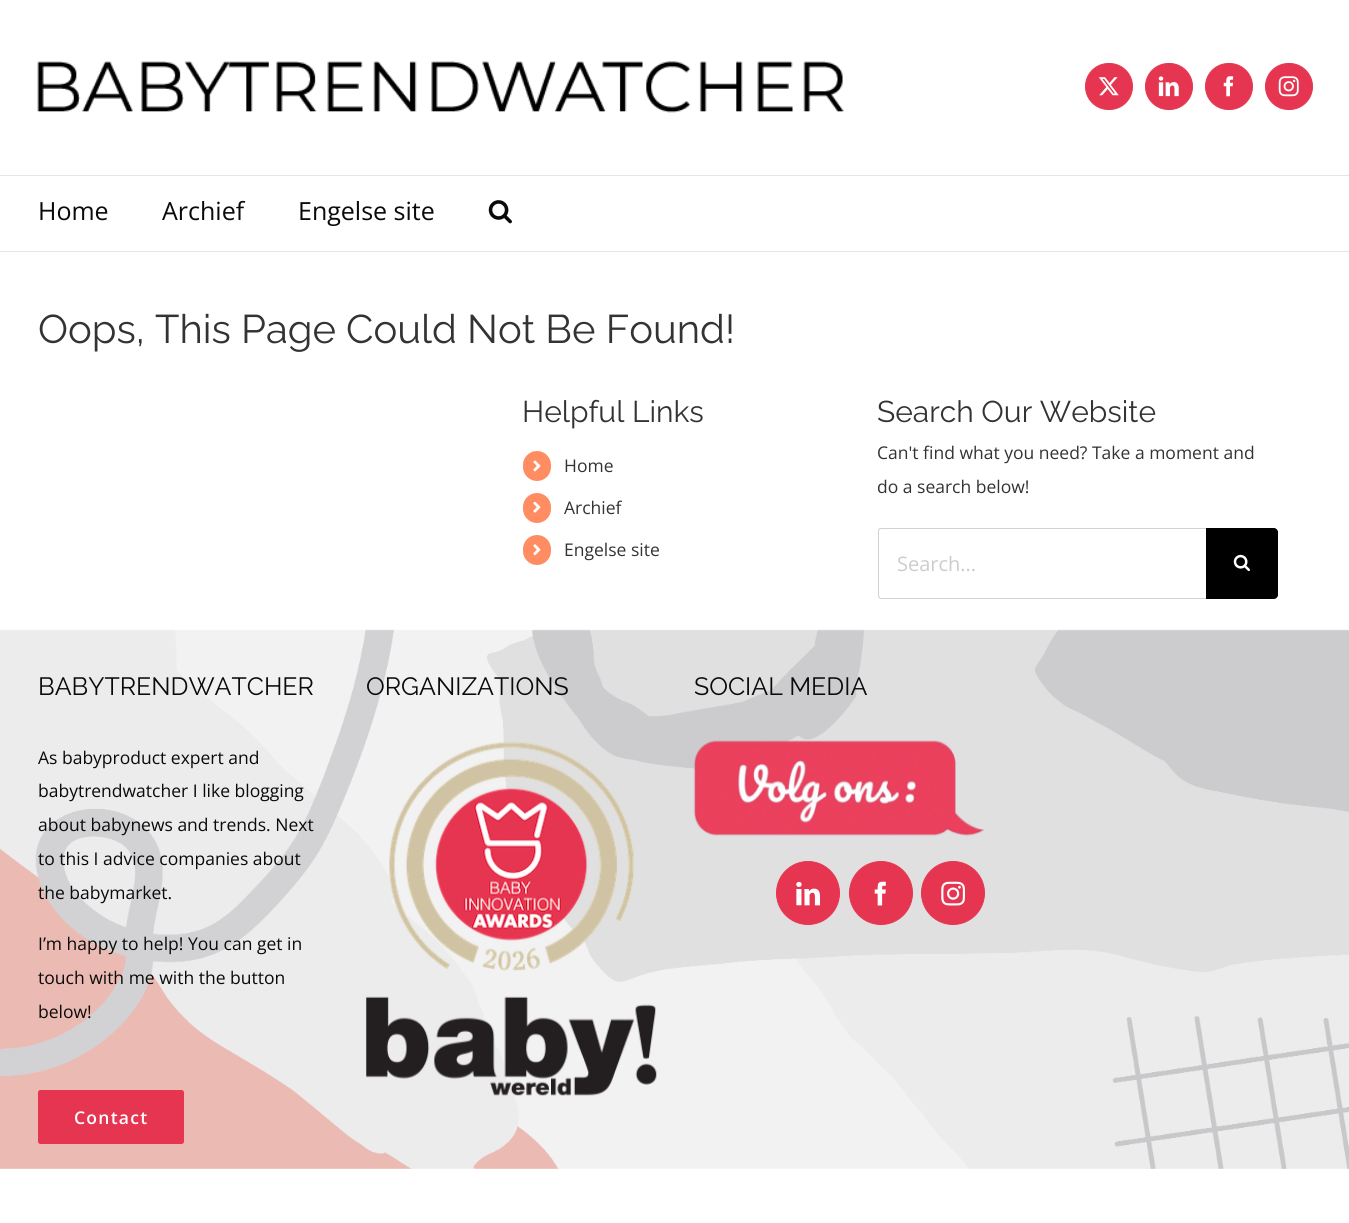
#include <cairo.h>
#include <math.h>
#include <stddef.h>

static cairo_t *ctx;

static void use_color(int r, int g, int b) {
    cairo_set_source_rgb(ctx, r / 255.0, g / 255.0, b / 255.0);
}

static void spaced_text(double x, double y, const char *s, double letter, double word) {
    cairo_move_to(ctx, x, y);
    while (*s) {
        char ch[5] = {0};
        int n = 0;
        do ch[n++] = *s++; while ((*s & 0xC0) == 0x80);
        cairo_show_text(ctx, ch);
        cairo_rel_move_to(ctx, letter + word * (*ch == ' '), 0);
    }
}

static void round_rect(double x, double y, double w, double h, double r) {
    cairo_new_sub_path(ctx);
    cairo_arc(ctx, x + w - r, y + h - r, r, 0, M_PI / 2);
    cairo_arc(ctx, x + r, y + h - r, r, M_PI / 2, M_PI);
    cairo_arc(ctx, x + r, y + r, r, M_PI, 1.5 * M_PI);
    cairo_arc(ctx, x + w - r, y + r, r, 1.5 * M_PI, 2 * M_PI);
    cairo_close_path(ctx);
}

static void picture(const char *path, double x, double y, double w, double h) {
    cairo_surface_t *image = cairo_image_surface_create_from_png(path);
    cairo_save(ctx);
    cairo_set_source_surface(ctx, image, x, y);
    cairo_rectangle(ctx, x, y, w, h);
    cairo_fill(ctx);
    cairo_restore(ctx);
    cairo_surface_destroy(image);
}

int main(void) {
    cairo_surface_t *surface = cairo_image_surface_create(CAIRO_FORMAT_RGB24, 1349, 1223);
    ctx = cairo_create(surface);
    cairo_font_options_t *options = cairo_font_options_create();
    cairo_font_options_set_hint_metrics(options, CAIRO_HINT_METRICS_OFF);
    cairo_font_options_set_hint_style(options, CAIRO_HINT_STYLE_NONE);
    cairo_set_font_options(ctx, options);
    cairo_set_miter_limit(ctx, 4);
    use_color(255, 255, 255);
    cairo_paint(ctx);
    use_color(230, 53, 80);
    round_rect(1085.5, 63.5, 47, 46, 23);
    cairo_fill_preserve(ctx);
    cairo_set_line_width(ctx, 1);
    cairo_stroke(ctx);
    picture("img1.png", 1098, 77, 21, 19);
    round_rect(1145.5, 63.5, 47, 46, 23);
    cairo_fill_preserve(ctx);
    cairo_stroke(ctx);
    picture("img2.png", 1158, 76, 21, 21);
    round_rect(1205.5, 63.5, 47, 46, 23);
    cairo_fill_preserve(ctx);
    cairo_stroke(ctx);
    picture("img3.png", 1223, 76, 11, 21);
    round_rect(1265.5, 63.5, 47, 46, 23);
    cairo_fill_preserve(ctx);
    cairo_stroke(ctx);
    picture("img4.png", 1278, 76, 21, 21);
    use_color(229, 229, 229);
    cairo_rectangle(ctx, 0, 175, 1349, 1);
    cairo_fill(ctx);
    picture("img5.png", 37, 61, 807, 52);
    cairo_rectangle(ctx, 0, 251, 1349, 1);
    cairo_fill(ctx);
    cairo_select_font_face(ctx, "Open Sans", CAIRO_FONT_SLANT_NORMAL, CAIRO_FONT_WEIGHT_NORMAL);
    cairo_set_font_size(ctx, 25);
    use_color(10, 10, 10);
    cairo_move_to(ctx, 38, 220);
    cairo_show_text(ctx, "Home");
    cairo_move_to(ctx, 162, 220);
    cairo_show_text(ctx, "Archief");
    cairo_move_to(ctx, 298, 220);
    cairo_show_text(ctx, "Engelse site");
    picture("img6.png", 488, 200, 24, 24);
    cairo_select_font_face(ctx, "Raleway Thin", CAIRO_FONT_SLANT_NORMAL, CAIRO_FONT_WEIGHT_NORMAL);
    cairo_set_font_size(ctx, 40);
    use_color(51, 51, 51);
    cairo_move_to(ctx, 38, 343);
    cairo_show_text(ctx, "Oops, This Page Could Not Be Found!");
    cairo_set_font_size(ctx, 30);
    cairo_move_to(ctx, 522, 422);
    cairo_show_text(ctx, "Helpful Links");
    use_color(255, 141, 97);
    round_rect(523, 451, 28, 30, 14);
    cairo_fill(ctx);
    picture("img7.png", 533, 460, 8, 12);
    cairo_select_font_face(ctx, "Open Sans", CAIRO_FONT_SLANT_NORMAL, CAIRO_FONT_WEIGHT_NORMAL);
    cairo_set_font_size(ctx, 17.5);
    use_color(51, 51, 51);
    cairo_move_to(ctx, 564, 472);
    cairo_show_text(ctx, "Home");
    use_color(255, 141, 97);
    round_rect(523, 493, 28, 30, 14);
    cairo_fill(ctx);
    picture("img8.png", 533, 501, 8, 12);
    use_color(51, 51, 51);
    cairo_move_to(ctx, 564, 514);
    cairo_show_text(ctx, "Archief");
    use_color(255, 141, 97);
    round_rect(523, 535, 28, 30, 14);
    cairo_fill(ctx);
    picture("img9.png", 533, 544, 8, 12);
    use_color(51, 51, 51);
    cairo_move_to(ctx, 564, 556);
    cairo_show_text(ctx, "Engelse site");
    cairo_select_font_face(ctx, "Raleway Thin", CAIRO_FONT_SLANT_NORMAL, CAIRO_FONT_WEIGHT_NORMAL);
    cairo_set_font_size(ctx, 30);
    cairo_move_to(ctx, 877, 422);
    cairo_show_text(ctx, "Search Our Website");
    cairo_select_font_face(ctx, "Open Sans", CAIRO_FONT_SLANT_NORMAL, CAIRO_FONT_WEIGHT_NORMAL);
    cairo_set_font_size(ctx, 17.5);
    cairo_move_to(ctx, 877, 459);
    cairo_show_text(ctx, "Can't find what you need? Take a moment and");
    cairo_move_to(ctx, 877, 493);
    cairo_show_text(ctx, "do a search below!");
    use_color(210, 210, 210);
    cairo_set_fill_rule(ctx, CAIRO_FILL_RULE_EVEN_ODD);
    cairo_new_path(ctx);
    cairo_move_to(ctx, 881, 528);
    cairo_line_to(ctx, 1206, 528);
    cairo_line_to(ctx, 1206, 599);
    cairo_line_to(ctx, 881, 599);
    cairo_curve_to(ctx, 879, 599, 878, 597, 878, 595);
    cairo_line_to(ctx, 878, 531);
    cairo_curve_to(ctx, 878, 529, 879, 528, 881, 528);
    cairo_close_path(ctx);
    cairo_move_to(ctx, 881, 529);
    cairo_line_to(ctx, 1206, 529);
    cairo_line_to(ctx, 1206, 598);
    cairo_line_to(ctx, 881, 598);
    cairo_curve_to(ctx, 880, 598, 879, 596, 879, 595);
    cairo_line_to(ctx, 879, 531);
    cairo_curve_to(ctx, 879, 530, 880, 529, 881, 529);
    cairo_close_path(ctx);
    cairo_fill(ctx);
    cairo_set_font_size(ctx, 20);
    use_color(204, 204, 204);
    cairo_move_to(ctx, 897, 571);
    cairo_show_text(ctx, "Search...");
    use_color(0, 0, 0);
    cairo_new_path(ctx);
    cairo_move_to(ctx, 1206, 528);
    cairo_line_to(ctx, 1274, 528);
    cairo_curve_to(ctx, 1276, 528, 1278, 530, 1278, 532);
    cairo_line_to(ctx, 1278, 595);
    cairo_curve_to(ctx, 1278, 597, 1276, 599, 1274, 599);
    cairo_line_to(ctx, 1206, 599);
    cairo_close_path(ctx);
    cairo_fill(ctx);
    picture("img10.png", 1233, 554, 17, 18);
    picture("img11.png", 0, 629, 1349, 540);
    cairo_select_font_face(ctx, "Raleway Thin", CAIRO_FONT_SLANT_NORMAL, CAIRO_FONT_WEIGHT_NORMAL);
    cairo_set_font_size(ctx, 25);
    use_color(10, 10, 10);
    cairo_move_to(ctx, 38, 695);
    cairo_show_text(ctx, "BABYTRENDWATCHER");
    cairo_select_font_face(ctx, "Open Sans", CAIRO_FONT_SLANT_NORMAL, CAIRO_FONT_WEIGHT_NORMAL);
    cairo_set_font_size(ctx, 17.5);
    cairo_move_to(ctx, 38, 764);
    cairo_show_text(ctx, "As babyproduct expert and");
    cairo_move_to(ctx, 38, 797);
    cairo_show_text(ctx, "babytrendwatcher I like blogging");
    cairo_move_to(ctx, 38, 831);
    cairo_show_text(ctx, "about babynews and trends. Next");
    cairo_move_to(ctx, 38, 865);
    cairo_show_text(ctx, "to this I advice companies about");
    cairo_move_to(ctx, 38, 899);
    cairo_show_text(ctx, "the babymarket.");
    cairo_move_to(ctx, 38, 950);
    cairo_show_text(ctx, "I’m happy to help! You can get in");
    cairo_move_to(ctx, 38, 984);
    cairo_show_text(ctx, "touch with me with the button");
    cairo_move_to(ctx, 38, 1018);
    cairo_show_text(ctx, "below!");
    use_color(230, 53, 80);
    round_rect(38, 1090, 146, 54, 2.5);
    cairo_fill(ctx);
    cairo_select_font_face(ctx, "Open Sans SemiBold", CAIRO_FONT_SLANT_NORMAL, CAIRO_FONT_WEIGHT_NORMAL);
    use_color(255, 255, 255);
    spaced_text(74, 1124, "Contact", 1.25, 0);
    cairo_select_font_face(ctx, "Raleway Thin", CAIRO_FONT_SLANT_NORMAL, CAIRO_FONT_WEIGHT_NORMAL);
    cairo_set_font_size(ctx, 25);
    use_color(10, 10, 10);
    cairo_move_to(ctx, 366, 695);
    cairo_show_text(ctx, "ORGANIZATIONS");
    picture("img12.png", 389, 741, 246, 230);
    picture("img13.png", 366, 996, 291, 100);
    cairo_move_to(ctx, 694, 695);
    cairo_show_text(ctx, "SOCIAL MEDIA");
    picture("img14.png", 693, 740, 291, 96);
    use_color(230, 53, 80);
    cairo_arc(ctx, 808, 893, 31.5, 0, 2 * M_PI);
    cairo_fill_preserve(ctx);
    cairo_stroke(ctx);
    picture("img15.png", 796, 881, 24, 25);
    cairo_arc(ctx, 881, 893, 31.5, 0, 2 * M_PI);
    cairo_fill_preserve(ctx);
    cairo_stroke(ctx);
    picture("img16.png", 874, 881, 12, 25);
    cairo_arc(ctx, 953, 893, 31.5, 0, 2 * M_PI);
    cairo_fill_preserve(ctx);
    cairo_stroke(ctx);
    picture("img17.png", 941, 881, 24, 25);
    cairo_surface_write_to_png(surface, "result.png");
    cairo_font_options_destroy(options);
    cairo_destroy(ctx);
    cairo_surface_destroy(surface);
    return 0;
}
